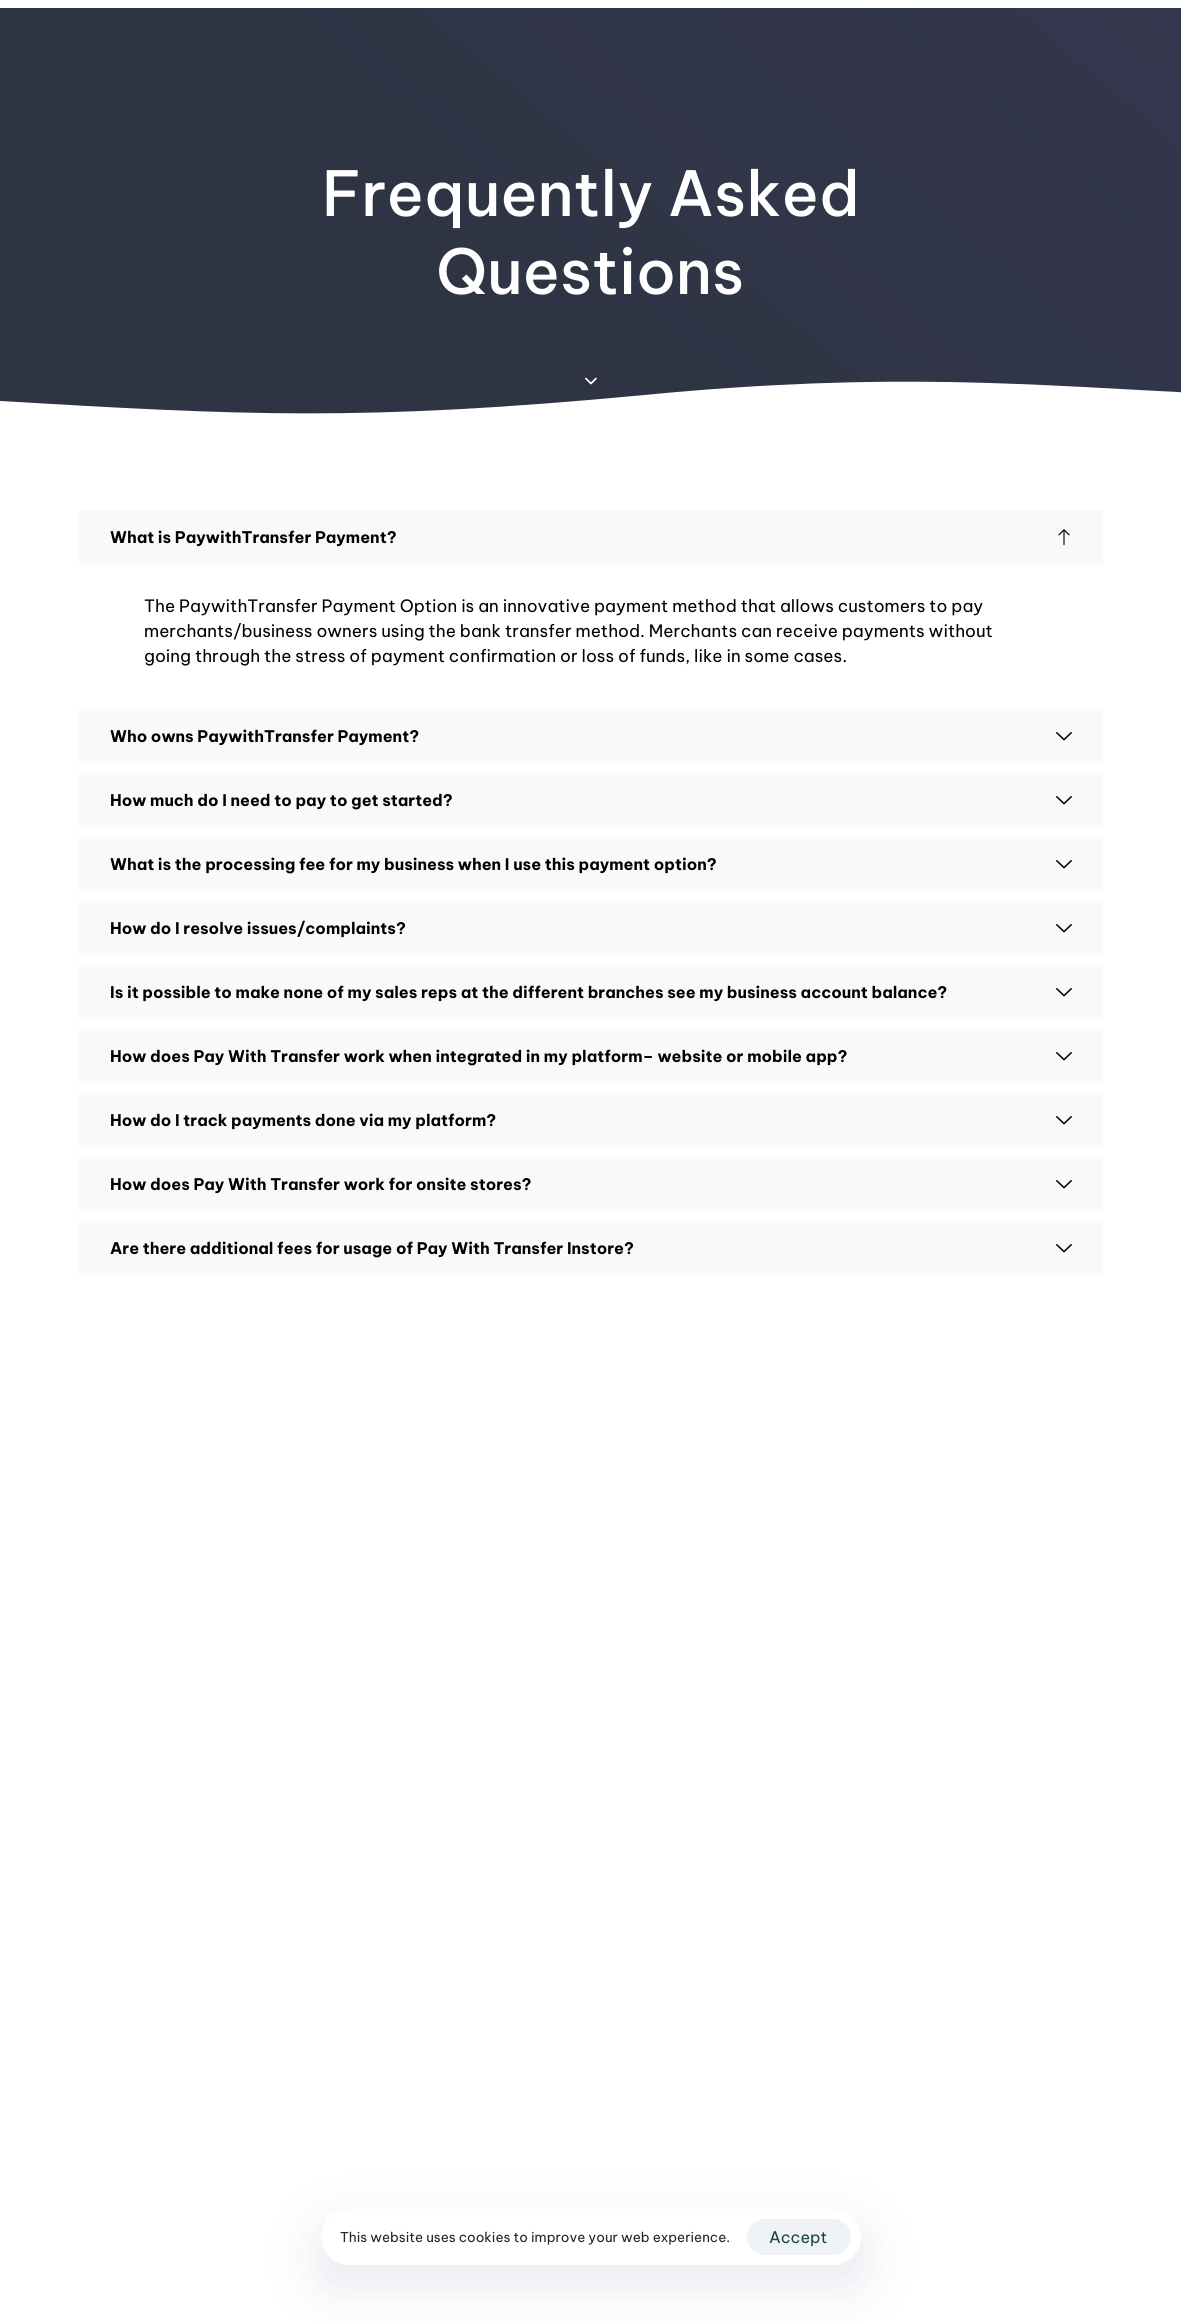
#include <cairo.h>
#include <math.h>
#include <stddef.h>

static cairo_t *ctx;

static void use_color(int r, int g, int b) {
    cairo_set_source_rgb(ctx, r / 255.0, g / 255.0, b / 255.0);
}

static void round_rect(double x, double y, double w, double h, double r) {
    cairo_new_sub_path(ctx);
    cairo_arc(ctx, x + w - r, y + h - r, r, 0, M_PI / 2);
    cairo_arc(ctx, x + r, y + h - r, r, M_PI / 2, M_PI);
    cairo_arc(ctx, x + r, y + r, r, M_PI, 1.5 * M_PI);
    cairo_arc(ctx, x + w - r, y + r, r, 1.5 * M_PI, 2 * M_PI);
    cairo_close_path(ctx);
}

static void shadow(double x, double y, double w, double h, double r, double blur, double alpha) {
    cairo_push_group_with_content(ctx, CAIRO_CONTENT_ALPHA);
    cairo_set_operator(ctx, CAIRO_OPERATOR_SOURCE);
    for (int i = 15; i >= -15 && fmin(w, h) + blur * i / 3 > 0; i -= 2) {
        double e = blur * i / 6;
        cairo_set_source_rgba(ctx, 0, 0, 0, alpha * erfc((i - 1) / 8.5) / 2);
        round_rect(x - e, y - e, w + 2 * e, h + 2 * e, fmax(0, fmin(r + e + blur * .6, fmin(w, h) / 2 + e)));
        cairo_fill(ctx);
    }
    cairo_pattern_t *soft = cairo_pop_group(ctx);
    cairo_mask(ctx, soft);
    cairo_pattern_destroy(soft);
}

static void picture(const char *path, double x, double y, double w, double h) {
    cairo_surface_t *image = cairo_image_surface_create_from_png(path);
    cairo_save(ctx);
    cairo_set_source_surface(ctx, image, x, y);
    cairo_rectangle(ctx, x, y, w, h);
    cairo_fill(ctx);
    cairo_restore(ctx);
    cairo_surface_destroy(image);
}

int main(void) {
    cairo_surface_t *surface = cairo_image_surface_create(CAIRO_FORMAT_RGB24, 1181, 2321);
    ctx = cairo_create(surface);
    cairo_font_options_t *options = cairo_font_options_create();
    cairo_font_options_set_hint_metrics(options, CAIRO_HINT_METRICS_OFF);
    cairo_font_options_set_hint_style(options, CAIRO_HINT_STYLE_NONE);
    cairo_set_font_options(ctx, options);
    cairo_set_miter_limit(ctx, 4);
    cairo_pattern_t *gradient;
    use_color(255, 255, 255);
    cairo_paint(ctx);
    gradient = cairo_pattern_create_linear(238, 640, 943, -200);
    cairo_pattern_add_color_stop_rgba(gradient, 0.31, 0.18, 0.204, 0.263, 1);
    cairo_pattern_add_color_stop_rgba(gradient, 1, 0.204, 0.212, 0.302, 1);
    cairo_set_source(ctx, gradient);
    cairo_pattern_destroy(gradient);
    cairo_rectangle(ctx, 0, 8, 1181, 406);
    cairo_fill(ctx);
    cairo_select_font_face(ctx, "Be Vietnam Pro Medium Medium", CAIRO_FONT_SLANT_NORMAL, CAIRO_FONT_WEIGHT_NORMAL);
    cairo_set_font_size(ctx, 62);
    use_color(255, 255, 255);
    cairo_move_to(ctx, 322, 216);
    cairo_show_text(ctx, "Frequently Asked");
    cairo_move_to(ctx, 436, 294);
    cairo_show_text(ctx, "Questions");
    cairo_save(ctx);
    cairo_rectangle(ctx, 0, 381, 1181, 60);
    cairo_clip(ctx);
    cairo_new_path(ctx);
    cairo_move_to(ctx, 0, 401);
    cairo_curve_to(ctx, 240, 415, 359, 422, 644, 395);
    cairo_curve_to(ctx, 894, 371, 1031, 385, 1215, 394);
    cairo_curve_to(ctx, 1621, 410, 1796, 426, 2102, 401);
    cairo_line_to(ctx, 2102, 459);
    cairo_line_to(ctx, 0, 459);
    cairo_close_path(ctx);
    cairo_fill(ctx);
    cairo_restore(ctx);
    picture("img1.png", 585, 377, 12, 8);
    use_color(247, 249, 251);
    cairo_rectangle(ctx, 79, 510, 1024, 54);
    cairo_fill(ctx);
    cairo_select_font_face(ctx, "Be Vietnam Pro", CAIRO_FONT_SLANT_NORMAL, CAIRO_FONT_WEIGHT_BOLD);
    cairo_set_font_size(ctx, 16);
    use_color(0, 0, 0);
    cairo_move_to(ctx, 110, 543);
    cairo_show_text(ctx, "What is PaywithTransfer Payment?");
    picture("img2.png", 1058, 529, 12, 17);
    cairo_select_font_face(ctx, "Be Vietnam Pro", CAIRO_FONT_SLANT_NORMAL, CAIRO_FONT_WEIGHT_NORMAL);
    cairo_set_font_size(ctx, 17);
    cairo_move_to(ctx, 144, 612);
    cairo_show_text(ctx, "The PaywithTransfer Payment Option is an innovative payment method that allows customers to pay");
    cairo_move_to(ctx, 144, 637);
    cairo_show_text(ctx, "merchants/business owners using the bank transfer method. Merchants can receive payments without");
    cairo_move_to(ctx, 144, 662);
    cairo_show_text(ctx, "going through the stress of payment confirmation or loss of funds, like in some cases.");
    use_color(247, 249, 251);
    cairo_rectangle(ctx, 79, 709, 1024, 54);
    cairo_fill(ctx);
    cairo_select_font_face(ctx, "Be Vietnam Pro", CAIRO_FONT_SLANT_NORMAL, CAIRO_FONT_WEIGHT_BOLD);
    cairo_set_font_size(ctx, 16);
    use_color(0, 0, 0);
    cairo_move_to(ctx, 110, 742);
    cairo_show_text(ctx, "Who owns PaywithTransfer Payment?");
    picture("img3.png", 1056, 732, 16, 9);
    use_color(247, 249, 251);
    cairo_rectangle(ctx, 79, 773, 1024, 54);
    cairo_fill(ctx);
    use_color(0, 0, 0);
    cairo_move_to(ctx, 110, 806);
    cairo_show_text(ctx, "How much do I need to pay to get started?");
    picture("img3.png", 1056, 796, 16, 9);
    use_color(247, 249, 251);
    cairo_rectangle(ctx, 79, 837, 1024, 54);
    cairo_fill(ctx);
    use_color(0, 0, 0);
    cairo_move_to(ctx, 110, 870);
    cairo_show_text(ctx, "What is the processing fee for my business when I use this payment option?");
    picture("img3.png", 1056, 860, 16, 9);
    use_color(247, 249, 251);
    cairo_rectangle(ctx, 79, 901, 1024, 54);
    cairo_fill(ctx);
    use_color(0, 0, 0);
    cairo_move_to(ctx, 110, 934);
    cairo_show_text(ctx, "How do I resolve issues/complaints?");
    picture("img3.png", 1056, 924, 16, 9);
    use_color(247, 249, 251);
    cairo_rectangle(ctx, 79, 965, 1024, 54);
    cairo_fill(ctx);
    use_color(0, 0, 0);
    cairo_move_to(ctx, 110, 998);
    cairo_show_text(ctx, "Is it possible to make none of my sales reps at the different branches see my business account balance?");
    picture("img3.png", 1056, 988, 16, 9);
    use_color(247, 249, 251);
    cairo_rectangle(ctx, 79, 1029, 1024, 54);
    cairo_fill(ctx);
    use_color(0, 0, 0);
    cairo_move_to(ctx, 110, 1062);
    cairo_show_text(ctx, "How does Pay With Transfer work when integrated in my platform– website or mobile app?");
    picture("img3.png", 1056, 1052, 16, 9);
    use_color(247, 249, 251);
    cairo_rectangle(ctx, 79, 1093, 1024, 54);
    cairo_fill(ctx);
    use_color(0, 0, 0);
    cairo_move_to(ctx, 110, 1126);
    cairo_show_text(ctx, "How do I track payments done via my platform?");
    picture("img3.png", 1056, 1116, 16, 9);
    use_color(247, 249, 251);
    cairo_rectangle(ctx, 79, 1157, 1024, 54);
    cairo_fill(ctx);
    use_color(0, 0, 0);
    cairo_move_to(ctx, 110, 1190);
    cairo_show_text(ctx, "How does Pay With Transfer work for onsite stores?");
    picture("img3.png", 1056, 1180, 16, 9);
    use_color(247, 249, 251);
    cairo_rectangle(ctx, 79, 1221, 1024, 54);
    cairo_fill(ctx);
    use_color(0, 0, 0);
    cairo_move_to(ctx, 110, 1254);
    cairo_show_text(ctx, "Are there additional fees for usage of Pay With Transfer Instore?");
    picture("img3.png", 1056, 1244, 16, 9);
    use_color(92, 107, 149);
    shadow(321, 2229, 540, 56, 28, 30, 0.15);
    use_color(255, 255, 255);
    round_rect(321, 2209, 540, 56, 28);
    cairo_fill(ctx);
    cairo_select_font_face(ctx, "Be Vietnam Pro", CAIRO_FONT_SLANT_NORMAL, CAIRO_FONT_WEIGHT_NORMAL);
    cairo_set_font_size(ctx, 13.5);
    use_color(36, 36, 36);
    cairo_move_to(ctx, 340, 2242);
    cairo_show_text(ctx, "This website uses cookies to improve your web experience.");
    use_color(239, 243, 245);
    round_rect(747, 2219, 104, 36, 18);
    cairo_fill(ctx);
    cairo_set_font_size(ctx, 16);
    use_color(24, 67, 65);
    cairo_move_to(ctx, 769, 2243);
    cairo_show_text(ctx, "Accept");
    cairo_surface_write_to_png(surface, "result.png");
    cairo_font_options_destroy(options);
    cairo_destroy(ctx);
    cairo_surface_destroy(surface);
    return 0;
}
